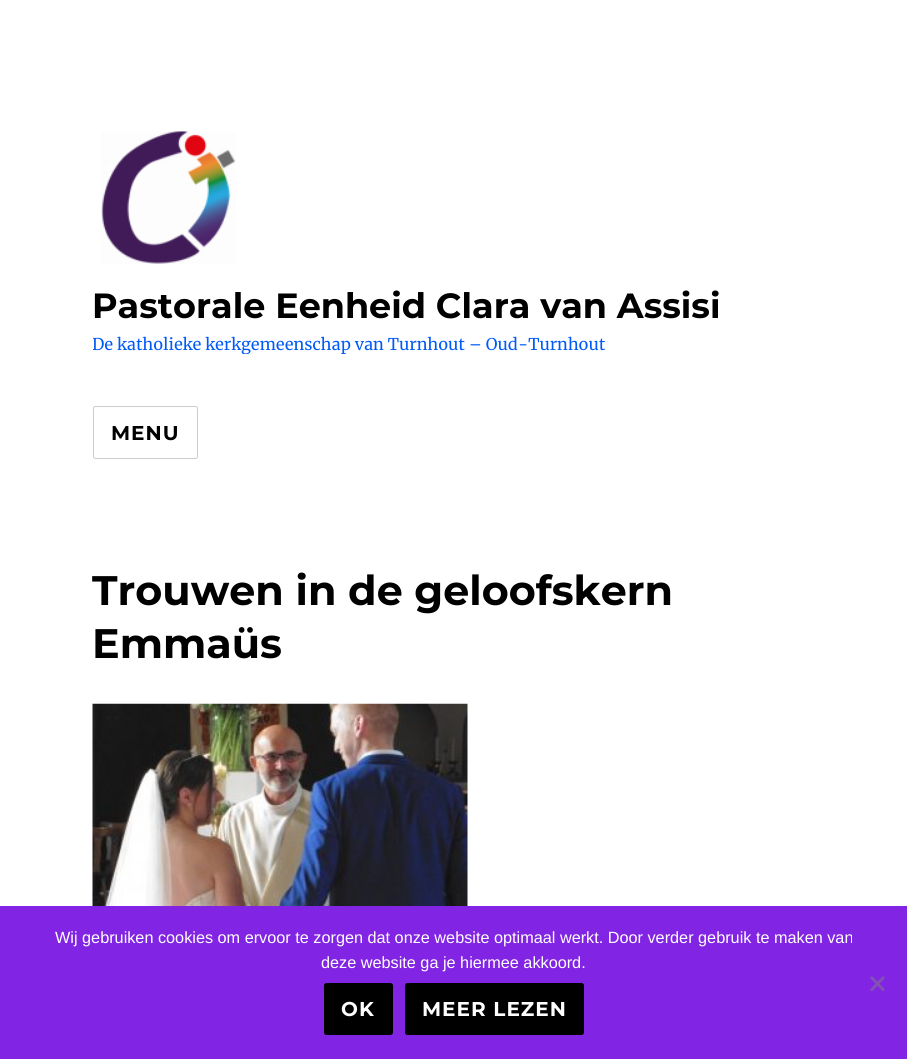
#include <cairo.h>
#include <math.h>
#include <stddef.h>

static cairo_t *ctx;

static void use_color(int r, int g, int b) {
    cairo_set_source_rgb(ctx, r / 255.0, g / 255.0, b / 255.0);
}

static void spaced_text(double x, double y, const char *s, double letter, double word) {
    cairo_move_to(ctx, x, y);
    while (*s) {
        char ch[5] = {0};
        int n = 0;
        do ch[n++] = *s++; while ((*s & 0xC0) == 0x80);
        cairo_show_text(ctx, ch);
        cairo_rel_move_to(ctx, letter + word * (*ch == ' '), 0);
    }
}

static void round_rect(double x, double y, double w, double h, double r) {
    cairo_new_sub_path(ctx);
    cairo_arc(ctx, x + w - r, y + h - r, r, 0, M_PI / 2);
    cairo_arc(ctx, x + r, y + h - r, r, M_PI / 2, M_PI);
    cairo_arc(ctx, x + r, y + r, r, M_PI, 1.5 * M_PI);
    cairo_arc(ctx, x + w - r, y + r, r, 1.5 * M_PI, 2 * M_PI);
    cairo_close_path(ctx);
}

static void picture(const char *path, double x, double y, double w, double h) {
    cairo_surface_t *image = cairo_image_surface_create_from_png(path);
    cairo_save(ctx);
    cairo_set_source_surface(ctx, image, x, y);
    cairo_rectangle(ctx, x, y, w, h);
    cairo_fill(ctx);
    cairo_restore(ctx);
    cairo_surface_destroy(image);
}

int main(void) {
    cairo_surface_t *surface = cairo_image_surface_create(CAIRO_FORMAT_RGB24, 907, 1059);
    ctx = cairo_create(surface);
    cairo_font_options_t *options = cairo_font_options_create();
    cairo_font_options_set_hint_metrics(options, CAIRO_HINT_METRICS_OFF);
    cairo_font_options_set_hint_style(options, CAIRO_HINT_STYLE_NONE);
    cairo_set_font_options(ctx, options);
    cairo_set_miter_limit(ctx, 4);
    use_color(255, 255, 255);
    cairo_paint(ctx);
    picture("img1.png", 101, 131, 135, 133);
    cairo_select_font_face(ctx, "Montserrat Thin", CAIRO_FONT_SLANT_NORMAL, CAIRO_FONT_WEIGHT_NORMAL);
    cairo_set_font_size(ctx, 35);
    use_color(0, 0, 0);
    cairo_move_to(ctx, 92, 318);
    cairo_show_text(ctx, "Pastorale Eenheid Clara van Assisi");
    cairo_save(ctx);
    cairo_rectangle(ctx, 93, 131, 627, 223);
    cairo_clip(ctx);
    cairo_select_font_face(ctx, "Merriweather", CAIRO_FONT_SLANT_NORMAL, CAIRO_FONT_WEIGHT_NORMAL);
    cairo_set_font_size(ctx, 16.25);
    use_color(0, 90, 247);
    cairo_move_to(ctx, 92, 350);
    cairo_show_text(ctx, "De katholieke kerkgemeenschap van Turnhout – Oud-Turnhout");
    cairo_restore(ctx);
    round_rect(93.5, 406.5, 104, 52, 2);
    use_color(204, 204, 204);
    cairo_set_line_width(ctx, 1);
    cairo_stroke(ctx);
    cairo_set_font_size(ctx, 20);
    use_color(0, 0, 0);
    spaced_text(111, 440, "MENU", 1, 0);
    cairo_set_font_size(ctx, 41.25);
    cairo_move_to(ctx, 92, 605);
    cairo_show_text(ctx, "Trouwen in de geloofskern");
    cairo_move_to(ctx, 92, 658);
    cairo_show_text(ctx, "Emmaüs");
    picture("img2.png", 92, 703, 376, 203);
    use_color(130, 36, 227);
    cairo_rectangle(ctx, 0, 906, 907, 153);
    cairo_fill(ctx);
    cairo_select_font_face(ctx, "Liberation Sans", CAIRO_FONT_SLANT_NORMAL, CAIRO_FONT_WEIGHT_NORMAL);
    cairo_set_font_size(ctx, 16.25);
    use_color(255, 255, 255);
    cairo_move_to(ctx, 55, 943);
    cairo_show_text(ctx, "Wij gebruiken cookies om ervoor te zorgen dat onze website optimaal werkt. Door verder gebruik te maken van");
    cairo_move_to(ctx, 321, 968);
    cairo_show_text(ctx, "deze website ga je hiermee akkoord.");
    use_color(129, 82, 178);
    cairo_new_path(ctx);
    cairo_move_to(ctx, 883, 976);
    cairo_line_to(ctx, 885, 978);
    cairo_line_to(ctx, 872, 991.5);
    cairo_line_to(ctx, 870, 989.5);
    cairo_close_path(ctx);
    cairo_fill(ctx);
    cairo_new_path(ctx);
    cairo_move_to(ctx, 870, 978);
    cairo_line_to(ctx, 872, 976);
    cairo_line_to(ctx, 885, 989.5);
    cairo_line_to(ctx, 883, 991.5);
    cairo_close_path(ctx);
    cairo_fill(ctx);
    use_color(0, 0, 0);
    round_rect(324, 983, 69, 52, 2.5);
    cairo_fill(ctx);
    cairo_select_font_face(ctx, "Montserrat Thin", CAIRO_FONT_SLANT_NORMAL, CAIRO_FONT_WEIGHT_NORMAL);
    cairo_set_font_size(ctx, 20);
    use_color(255, 255, 255);
    spaced_text(341, 1016, "OK", 1, 0);
    use_color(0, 0, 0);
    round_rect(405, 983, 179, 52, 2.5);
    cairo_fill(ctx);
    use_color(255, 255, 255);
    spaced_text(422, 1016, "MEER LEZEN", 1, 0);
    cairo_surface_write_to_png(surface, "result.png");
    cairo_font_options_destroy(options);
    cairo_destroy(ctx);
    cairo_surface_destroy(surface);
    return 0;
}
